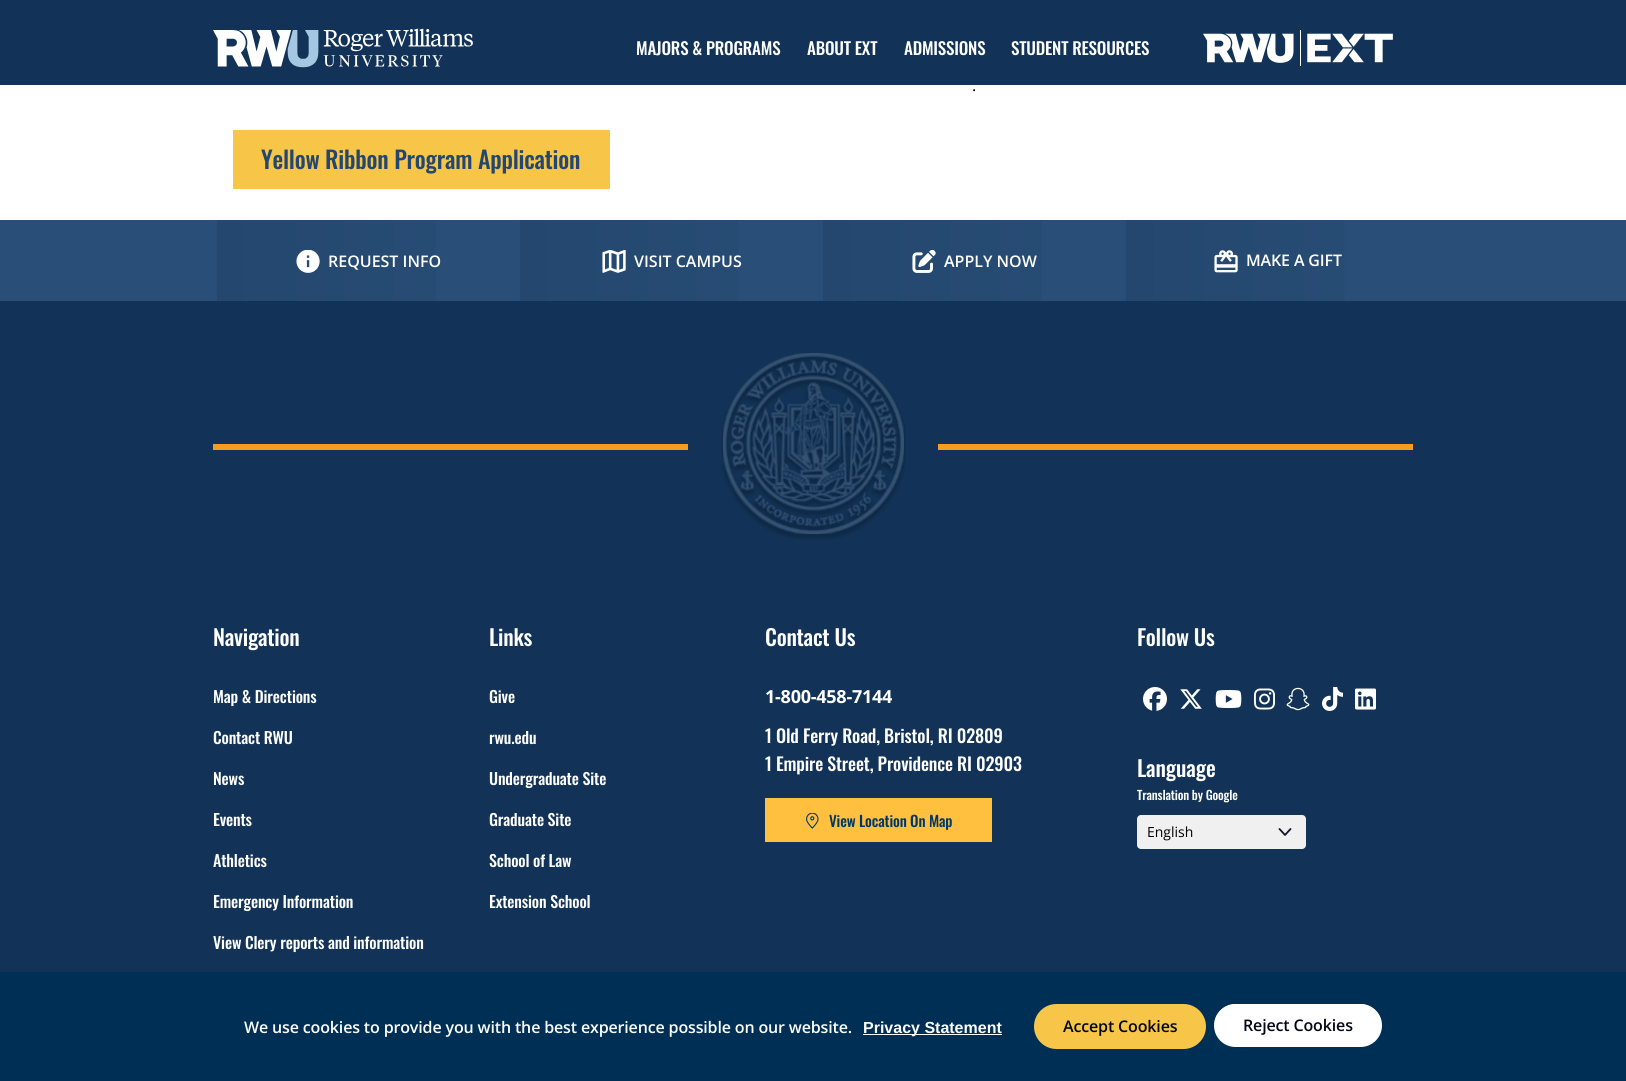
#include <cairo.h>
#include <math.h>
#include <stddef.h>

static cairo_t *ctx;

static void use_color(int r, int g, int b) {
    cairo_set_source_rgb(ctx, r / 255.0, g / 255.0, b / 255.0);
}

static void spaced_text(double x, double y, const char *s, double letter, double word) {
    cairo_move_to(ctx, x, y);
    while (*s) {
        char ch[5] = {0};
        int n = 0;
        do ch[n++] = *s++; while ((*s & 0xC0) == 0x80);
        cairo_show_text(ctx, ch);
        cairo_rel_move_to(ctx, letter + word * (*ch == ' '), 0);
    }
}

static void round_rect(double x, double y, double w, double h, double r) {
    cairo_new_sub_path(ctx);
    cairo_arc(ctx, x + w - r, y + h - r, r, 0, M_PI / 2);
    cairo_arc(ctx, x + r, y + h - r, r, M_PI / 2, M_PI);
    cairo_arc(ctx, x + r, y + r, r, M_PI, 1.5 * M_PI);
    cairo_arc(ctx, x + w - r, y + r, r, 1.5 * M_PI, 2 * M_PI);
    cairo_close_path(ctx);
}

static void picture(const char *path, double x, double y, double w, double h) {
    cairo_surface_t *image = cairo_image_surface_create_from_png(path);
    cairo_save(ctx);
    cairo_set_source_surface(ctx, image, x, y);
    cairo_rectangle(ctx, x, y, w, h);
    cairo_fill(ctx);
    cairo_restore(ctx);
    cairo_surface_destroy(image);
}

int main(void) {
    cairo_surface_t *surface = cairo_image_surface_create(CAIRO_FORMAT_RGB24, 1626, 1081);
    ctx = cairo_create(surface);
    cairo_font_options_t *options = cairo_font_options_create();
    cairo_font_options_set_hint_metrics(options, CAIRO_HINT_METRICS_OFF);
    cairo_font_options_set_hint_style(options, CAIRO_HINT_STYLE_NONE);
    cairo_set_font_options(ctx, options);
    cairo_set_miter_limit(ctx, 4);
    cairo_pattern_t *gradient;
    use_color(255, 255, 255);
    cairo_paint(ctx);
    use_color(18, 51, 87);
    cairo_rectangle(ctx, 0, 0, 1626, 85);
    cairo_fill(ctx);
    picture("img1.png", 213, 28, 260, 40);
    cairo_select_font_face(ctx, "Oswald Medium", CAIRO_FONT_SLANT_NORMAL, CAIRO_FONT_WEIGHT_NORMAL);
    cairo_set_font_size(ctx, 17);
    use_color(255, 255, 255);
    spaced_text(636, 55, "MAJORS & PROGRAMS", -0.2, 0);
    spaced_text(807, 55, "ABOUT EXT", -0.2, 0);
    spaced_text(904, 55, "ADMISSIONS", -0.2, 0);
    spaced_text(1011, 55, "STUDENT RESOURCES", -0.2, 0);
    picture("img2.png", 1203, 30, 190, 36);
    cairo_select_font_face(ctx, "Open Sans", CAIRO_FONT_SLANT_NORMAL, CAIRO_FONT_WEIGHT_NORMAL);
    cairo_set_font_size(ctx, 16);
    use_color(0, 0, 0);
    spaced_text(972, 91, ".", -0.15, 0);
    use_color(247, 197, 72);
    cairo_rectangle(ctx, 233, 130, 377, 59);
    cairo_fill(ctx);
    cairo_select_font_face(ctx, "Oswald Medium", CAIRO_FONT_SLANT_NORMAL, CAIRO_FONT_WEIGHT_NORMAL);
    cairo_set_font_size(ctx, 24);
    use_color(35, 71, 110);
    spaced_text(261, 169, "Yellow Ribbon Program Application", -0.2, 0);
    use_color(18, 51, 87);
    cairo_rectangle(ctx, 0, 301, 1626, 671);
    cairo_fill(ctx);
    use_color(41, 78, 119);
    cairo_rectangle(ctx, 0, 220, 1626, 81);
    cairo_fill(ctx);
    gradient = cairo_pattern_create_linear(217, 261, 520, 261);
    cairo_pattern_add_color_stop_rgba(gradient, 0, 0.137, 0.278, 0.431, 1);
    cairo_pattern_add_color_stop_rgba(gradient, 1, 0.161, 0.306, 0.467, 1);
    cairo_set_source(ctx, gradient);
    cairo_pattern_destroy(gradient);
    cairo_rectangle(ctx, 217, 220, 219, 81);
    cairo_fill(ctx);
    picture("img3.png", 296, 250, 24, 23);
    cairo_select_font_face(ctx, "Open Sans SemiBold", CAIRO_FONT_SLANT_NORMAL, CAIRO_FONT_WEIGHT_NORMAL);
    cairo_set_font_size(ctx, 16);
    use_color(255, 255, 255);
    cairo_move_to(ctx, 328, 267);
    cairo_show_text(ctx, "REQUEST INFO");
    gradient = cairo_pattern_create_linear(520, 261, 823, 261);
    cairo_pattern_add_color_stop_rgba(gradient, 0, 0.137, 0.278, 0.431, 1);
    cairo_pattern_add_color_stop_rgba(gradient, 1, 0.161, 0.306, 0.467, 1);
    cairo_set_source(ctx, gradient);
    cairo_pattern_destroy(gradient);
    cairo_rectangle(ctx, 520, 220, 219, 81);
    cairo_fill(ctx);
    picture("img4.png", 602, 250, 24, 23);
    use_color(255, 255, 255);
    cairo_move_to(ctx, 634, 267);
    cairo_show_text(ctx, "VISIT CAMPUS");
    gradient = cairo_pattern_create_linear(823, 261, 1126, 261);
    cairo_pattern_add_color_stop_rgba(gradient, 0, 0.137, 0.278, 0.431, 1);
    cairo_pattern_add_color_stop_rgba(gradient, 1, 0.161, 0.306, 0.467, 1);
    cairo_set_source(ctx, gradient);
    cairo_pattern_destroy(gradient);
    cairo_rectangle(ctx, 823, 220, 219, 81);
    cairo_fill(ctx);
    picture("img5.png", 912, 250, 24, 23);
    use_color(255, 255, 255);
    cairo_move_to(ctx, 944, 267);
    cairo_show_text(ctx, "APPLY NOW");
    gradient = cairo_pattern_create_linear(1126, 261, 1429, 261);
    cairo_pattern_add_color_stop_rgba(gradient, 0, 0.137, 0.278, 0.431, 1);
    cairo_pattern_add_color_stop_rgba(gradient, 1, 0.161, 0.306, 0.467, 1);
    cairo_set_source(ctx, gradient);
    cairo_pattern_destroy(gradient);
    cairo_rectangle(ctx, 1126, 220, 219, 81);
    cairo_fill(ctx);
    picture("img6.png", 1214, 250, 24, 23);
    use_color(255, 255, 255);
    spaced_text(1246, 266, "MAKE A GIFT", -0.15, 0);
    use_color(245, 157, 28);
    cairo_rectangle(ctx, 213, 444, 1200, 6);
    cairo_fill(ctx);
    use_color(18, 51, 87);
    cairo_rectangle(ctx, 688, 444, 250, 6);
    cairo_fill(ctx);
    picture("img7.png", 721, 353, 185, 187);
    cairo_select_font_face(ctx, "Oswald Medium", CAIRO_FONT_SLANT_NORMAL, CAIRO_FONT_WEIGHT_NORMAL);
    cairo_set_font_size(ctx, 22);
    use_color(255, 255, 255);
    spaced_text(213, 646, "Navigation", -0.25, 0);
    cairo_set_font_size(ctx, 16);
    spaced_text(213, 703, "Map & Directions", -0.15, 0);
    spaced_text(213, 744, "Contact RWU", -0.15, 0);
    spaced_text(213, 785, "News", -0.15, 0);
    spaced_text(213, 826, "Events", -0.15, 0);
    spaced_text(213, 867, "Athletics", -0.15, 0);
    spaced_text(213, 908, "Emergency Information", -0.15, 0);
    spaced_text(213, 949, "View Clery reports and information", -0.15, 0);
    cairo_set_font_size(ctx, 22);
    spaced_text(489, 646, "Links", -0.25, 0);
    cairo_set_font_size(ctx, 16);
    spaced_text(489, 703, "Give", -0.15, 0);
    spaced_text(489, 744, "rwu.edu", -0.15, 0);
    spaced_text(489, 785, "Undergraduate Site", -0.15, 0);
    spaced_text(489, 826, "Graduate Site", -0.15, 0);
    spaced_text(489, 867, "School of Law", -0.15, 0);
    spaced_text(489, 908, "Extension School", -0.15, 0);
    cairo_set_font_size(ctx, 22);
    spaced_text(765, 646, "Contact Us", -0.25, 0);
    cairo_select_font_face(ctx, "Open Sans", CAIRO_FONT_SLANT_NORMAL, CAIRO_FONT_WEIGHT_BOLD);
    cairo_set_font_size(ctx, 18);
    spaced_text(765, 703, "1-800-458-7144", -0.25, 0);
    cairo_select_font_face(ctx, "Oswald Medium", CAIRO_FONT_SLANT_NORMAL, CAIRO_FONT_WEIGHT_NORMAL);
    spaced_text(765, 743, "1 Old Ferry Road, Bristol, RI 02809", -0.15, 0);
    spaced_text(765, 771, "1 Empire Street, Providence RI 02903", -0.15, 0);
    use_color(255, 192, 63);
    cairo_rectangle(ctx, 765, 798, 227, 44);
    cairo_fill(ctx);
    picture("img8.png", 806, 813, 13, 16);
    cairo_set_font_size(ctx, 15);
    use_color(0, 56, 101);
    spaced_text(829, 827, "View Location On Map", -0.15, 0);
    cairo_set_font_size(ctx, 22);
    use_color(255, 255, 255);
    spaced_text(1137, 646, "Follow Us", -0.25, 0);
    picture("img9.png", 1143, 687, 24, 24);
    picture("img10.png", 1180, 689, 22, 20);
    picture("img11.png", 1215, 690, 27, 18);
    picture("img12.png", 1254, 688, 21, 22);
    picture("img13.png", 1286, 687, 24, 24);
    picture("img14.png", 1322, 687, 21, 24);
    picture("img15.png", 1355, 688, 21, 22);
    spaced_text(1137, 777, "Language", -0.15, 0);
    cairo_set_font_size(ctx, 12.5);
    spaced_text(1137, 800, "Translation by Google", -0.15, 0);
    use_color(240, 240, 240);
    round_rect(1137, 815, 169, 34, 4);
    cairo_fill(ctx);
    cairo_new_path(ctx);
    cairo_move_to(ctx, 1279.5, 829);
    cairo_line_to(ctx, 1285, 835);
    cairo_line_to(ctx, 1290.5, 829);
    use_color(16, 24, 40);
    cairo_set_line_width(ctx, 1.8);
    cairo_set_line_cap(ctx, CAIRO_LINE_CAP_ROUND);
    cairo_set_line_join(ctx, CAIRO_LINE_JOIN_ROUND);
    cairo_stroke(ctx);
    cairo_select_font_face(ctx, "Open Sans", CAIRO_FONT_SLANT_NORMAL, CAIRO_FONT_WEIGHT_NORMAL);
    cairo_set_font_size(ctx, 14);
    use_color(0, 0, 0);
    cairo_move_to(ctx, 1147, 837);
    cairo_show_text(ctx, "English");
    use_color(0, 47, 85);
    cairo_rectangle(ctx, 0, 972, 1626, 109);
    cairo_fill(ctx);
    cairo_select_font_face(ctx, "Open Sans SemiBold", CAIRO_FONT_SLANT_NORMAL, CAIRO_FONT_WEIGHT_NORMAL);
    cairo_set_font_size(ctx, 16);
    use_color(255, 255, 255);
    spaced_text(244, 1033, "We use cookies to provide you with the best experience possible on our website.", -0.15, 0);
    cairo_rectangle(ctx, 863, 1034, 139, 1);
    cairo_fill(ctx);
    cairo_select_font_face(ctx, "Liberation Sans", CAIRO_FONT_SLANT_NORMAL, CAIRO_FONT_WEIGHT_BOLD);
    cairo_move_to(ctx, 863, 1033);
    cairo_show_text(ctx, "Privacy Statement");
    use_color(247, 197, 72);
    round_rect(1034, 1004, 172, 45, 22.5);
    cairo_fill(ctx);
    cairo_select_font_face(ctx, "Open Sans SemiBold", CAIRO_FONT_SLANT_NORMAL, CAIRO_FONT_WEIGHT_NORMAL);
    use_color(2, 6, 23);
    spaced_text(1063, 1032, "Accept Cookies", -0.15, 0);
    use_color(255, 255, 255);
    round_rect(1214, 1004, 168, 43, 21.5);
    cairo_fill(ctx);
    cairo_new_path(ctx);
    cairo_move_to(ctx, 1236, 1005);
    cairo_line_to(ctx, 1360, 1005);
    cairo_curve_to(ctx, 1372, 1005, 1382, 1015, 1382, 1026);
    cairo_curve_to(ctx, 1382, 1014, 1372, 1004, 1360, 1004);
    cairo_line_to(ctx, 1236, 1004);
    cairo_curve_to(ctx, 1224, 1004, 1214, 1014, 1214, 1026);
    cairo_curve_to(ctx, 1214, 1015, 1224, 1005, 1236, 1005);
    cairo_close_path(ctx);
    cairo_fill(ctx);
    use_color(2, 6, 23);
    spaced_text(1243, 1031, "Reject Cookies", -0.15, 0);
    cairo_surface_write_to_png(surface, "result.png");
    cairo_font_options_destroy(options);
    cairo_destroy(ctx);
    cairo_surface_destroy(surface);
    return 0;
}
